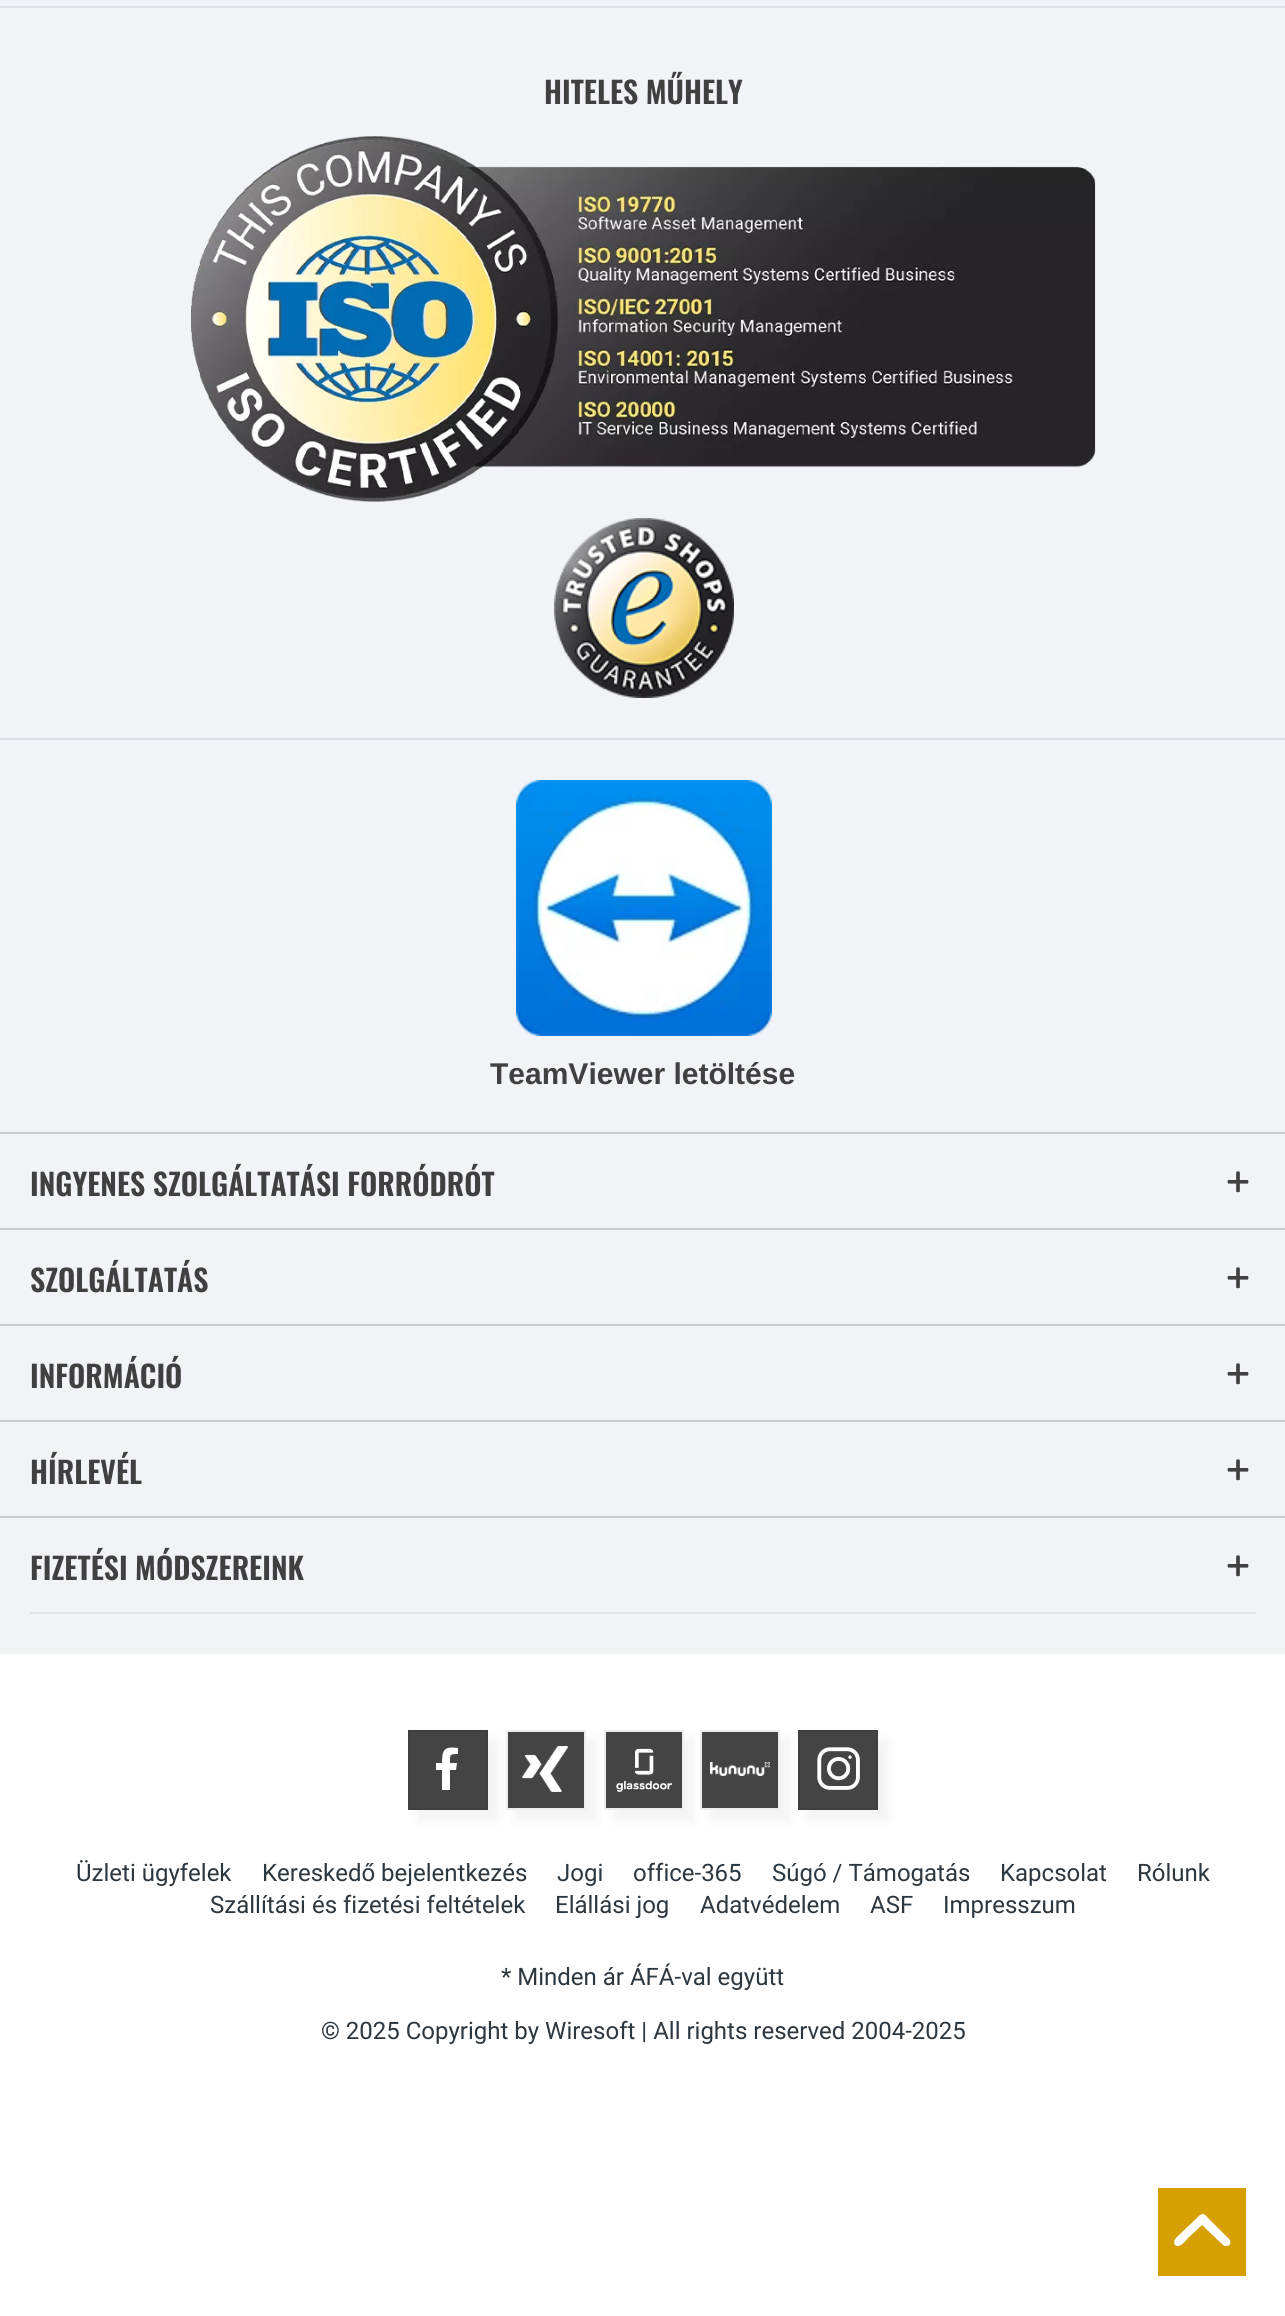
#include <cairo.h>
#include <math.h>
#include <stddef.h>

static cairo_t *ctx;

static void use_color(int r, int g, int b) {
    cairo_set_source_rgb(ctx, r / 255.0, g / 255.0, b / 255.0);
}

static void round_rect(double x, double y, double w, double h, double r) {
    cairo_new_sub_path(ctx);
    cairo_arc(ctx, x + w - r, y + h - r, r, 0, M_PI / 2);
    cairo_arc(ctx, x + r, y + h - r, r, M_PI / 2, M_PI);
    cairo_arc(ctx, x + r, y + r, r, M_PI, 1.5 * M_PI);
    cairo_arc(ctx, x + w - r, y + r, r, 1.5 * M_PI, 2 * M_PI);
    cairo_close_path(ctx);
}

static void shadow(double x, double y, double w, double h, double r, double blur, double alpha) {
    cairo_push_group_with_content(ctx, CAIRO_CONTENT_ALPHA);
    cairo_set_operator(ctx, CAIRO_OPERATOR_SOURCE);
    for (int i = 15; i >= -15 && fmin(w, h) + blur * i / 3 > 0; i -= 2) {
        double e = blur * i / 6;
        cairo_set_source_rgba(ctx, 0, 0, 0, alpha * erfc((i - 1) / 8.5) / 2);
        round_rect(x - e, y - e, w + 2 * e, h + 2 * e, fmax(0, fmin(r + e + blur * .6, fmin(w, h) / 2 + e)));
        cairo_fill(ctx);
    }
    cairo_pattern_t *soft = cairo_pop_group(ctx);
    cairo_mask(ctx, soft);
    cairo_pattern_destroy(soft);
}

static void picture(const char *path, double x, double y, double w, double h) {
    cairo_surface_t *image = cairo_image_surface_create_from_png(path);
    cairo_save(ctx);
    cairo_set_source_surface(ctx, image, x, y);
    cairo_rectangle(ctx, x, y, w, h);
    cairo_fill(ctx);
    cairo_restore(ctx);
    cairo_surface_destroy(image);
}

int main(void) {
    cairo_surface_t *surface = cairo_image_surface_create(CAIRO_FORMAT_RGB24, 1285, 2316);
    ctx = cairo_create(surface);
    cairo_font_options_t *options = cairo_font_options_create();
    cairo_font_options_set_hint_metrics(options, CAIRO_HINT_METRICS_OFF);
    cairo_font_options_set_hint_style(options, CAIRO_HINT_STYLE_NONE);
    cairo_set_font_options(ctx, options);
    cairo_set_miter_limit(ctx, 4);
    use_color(255, 255, 255);
    cairo_paint(ctx);
    use_color(242, 243, 247);
    cairo_rectangle(ctx, 0, 0, 1285, 6);
    cairo_fill(ctx);
    cairo_rectangle(ctx, 0, 8, 1285, 730);
    cairo_fill(ctx);
    use_color(222, 223, 228);
    cairo_rectangle(ctx, 0, 6, 1285, 2);
    cairo_fill(ctx);
    cairo_select_font_face(ctx, "Oswald SemiBold", CAIRO_FONT_SLANT_NORMAL, CAIRO_FONT_WEIGHT_NORMAL);
    cairo_set_font_size(ctx, 30);
    use_color(64, 64, 64);
    cairo_move_to(ctx, 544, 104);
    cairo_show_text(ctx, "HITELES MŰHELY");
    picture("img1.png", 191, 136, 905, 366);
    picture("img2.png", 554, 518, 180, 180);
    use_color(242, 243, 247);
    cairo_rectangle(ctx, 0, 740, 1285, 392);
    cairo_fill(ctx);
    use_color(222, 223, 228);
    cairo_rectangle(ctx, 0, 738, 1285, 2);
    cairo_fill(ctx);
    picture("img3.png", 516, 780, 256, 256);
    cairo_select_font_face(ctx, "Liberation Sans", CAIRO_FONT_SLANT_NORMAL, CAIRO_FONT_WEIGHT_BOLD);
    use_color(64, 64, 64);
    cairo_move_to(ctx, 490, 1084);
    cairo_show_text(ctx, "TeamViewer letöltése");
    use_color(242, 243, 247);
    cairo_rectangle(ctx, 0, 1134, 1285, 382);
    cairo_fill(ctx);
    use_color(204, 204, 204);
    cairo_rectangle(ctx, 0, 1132, 1285, 2);
    cairo_fill(ctx);
    cairo_select_font_face(ctx, "Oswald SemiBold", CAIRO_FONT_SLANT_NORMAL, CAIRO_FONT_WEIGHT_NORMAL);
    use_color(64, 64, 64);
    cairo_move_to(ctx, 30, 1196);
    cairo_show_text(ctx, "INGYENES SZOLGÁLTATÁSI FORRÓDRÓT");
    picture("img4.png", 1227, 1171, 22, 22);
    use_color(204, 204, 204);
    cairo_rectangle(ctx, 0, 1228, 1285, 2);
    cairo_fill(ctx);
    use_color(64, 64, 64);
    cairo_move_to(ctx, 30, 1292);
    cairo_show_text(ctx, "SZOLGÁLTATÁS");
    picture("img4.png", 1227, 1267, 22, 22);
    use_color(204, 204, 204);
    cairo_rectangle(ctx, 0, 1324, 1285, 2);
    cairo_fill(ctx);
    use_color(64, 64, 64);
    cairo_move_to(ctx, 30, 1388);
    cairo_show_text(ctx, "INFORMÁCIÓ");
    picture("img4.png", 1227, 1363, 22, 22);
    use_color(204, 204, 204);
    cairo_rectangle(ctx, 0, 1420, 1285, 2);
    cairo_fill(ctx);
    use_color(64, 64, 64);
    cairo_move_to(ctx, 30, 1484);
    cairo_show_text(ctx, "HÍRLEVÉL");
    picture("img4.png", 1227, 1459, 22, 22);
    use_color(242, 243, 247);
    cairo_rectangle(ctx, 0, 1518, 1285, 136);
    cairo_fill(ctx);
    use_color(204, 204, 204);
    cairo_rectangle(ctx, 0, 1516, 1285, 2);
    cairo_fill(ctx);
    use_color(225, 226, 230);
    cairo_rectangle(ctx, 30, 1612, 1226, 2);
    cairo_fill(ctx);
    use_color(64, 64, 64);
    cairo_move_to(ctx, 30, 1580);
    cairo_show_text(ctx, "FIZETÉSI MÓDSZEREINK");
    picture("img4.png", 1227, 1555, 22, 22);
    use_color(0, 0, 0);
    shadow(418, 1740, 80, 80, 0, 5, 0.05);
    use_color(68, 68, 68);
    cairo_rectangle(ctx, 410, 1732, 76, 76);
    cairo_fill(ctx);
    use_color(255, 255, 255);
    cairo_new_path(ctx);
    cairo_move_to(ctx, 450, 1790);
    cairo_line_to(ctx, 450, 1770);
    cairo_line_to(ctx, 456, 1770);
    cairo_line_to(ctx, 457, 1763);
    cairo_line_to(ctx, 450, 1763);
    cairo_curve_to(ctx, 450, 1755, 449, 1754, 458, 1754);
    cairo_line_to(ctx, 458, 1748);
    cairo_curve_to(ctx, 444, 1746, 442, 1750, 442, 1763);
    cairo_line_to(ctx, 436, 1763);
    cairo_line_to(ctx, 436, 1770);
    cairo_line_to(ctx, 442, 1770);
    cairo_line_to(ctx, 442, 1790);
    cairo_close_path(ctx);
    cairo_fill(ctx);
    cairo_rectangle(ctx, 409, 1731, 78, 78);
    use_color(63, 63, 63);
    cairo_stroke(ctx);
    use_color(0, 0, 0);
    shadow(516, 1740, 80, 80, 0, 5, 0.05);
    use_color(68, 68, 68);
    cairo_rectangle(ctx, 508, 1732, 76, 76);
    cairo_fill(ctx);
    picture("img5.png", 522, 1746, 46, 46);
    cairo_rectangle(ctx, 507, 1731, 78, 78);
    use_color(237, 237, 237);
    cairo_stroke(ctx);
    use_color(0, 0, 0);
    shadow(614, 1740, 80, 80, 0, 5, 0.05);
    use_color(68, 68, 68);
    cairo_rectangle(ctx, 606, 1732, 76, 76);
    cairo_fill(ctx);
    picture("img6.png", 616, 1748, 56, 44);
    cairo_rectangle(ctx, 605, 1731, 78, 78);
    use_color(237, 237, 237);
    cairo_stroke(ctx);
    use_color(0, 0, 0);
    shadow(710, 1740, 80, 80, 0, 5, 0.05);
    use_color(68, 68, 68);
    cairo_rectangle(ctx, 702, 1732, 76, 76);
    cairo_fill(ctx);
    picture("img7.png", 710, 1762, 60, 14);
    cairo_rectangle(ctx, 701, 1731, 78, 78);
    use_color(237, 237, 237);
    cairo_stroke(ctx);
    use_color(0, 0, 0);
    shadow(808, 1740, 80, 80, 0, 5, 0.05);
    use_color(68, 68, 68);
    cairo_rectangle(ctx, 800, 1732, 76, 76);
    cairo_fill(ctx);
    picture("img8.png", 817, 1747, 43, 43);
    cairo_rectangle(ctx, 799, 1731, 78, 78);
    use_color(63, 63, 63);
    cairo_stroke(ctx);
    cairo_select_font_face(ctx, "Roboto", CAIRO_FONT_SLANT_NORMAL, CAIRO_FONT_WEIGHT_NORMAL);
    cairo_set_font_size(ctx, 24);
    use_color(45, 55, 64);
    cairo_move_to(ctx, 76, 1881);
    cairo_show_text(ctx, "Üzleti ügyfelek");
    cairo_move_to(ctx, 262, 1881);
    cairo_show_text(ctx, "Kereskedő bejelentkezés");
    cairo_move_to(ctx, 557, 1881);
    cairo_show_text(ctx, "Jogi");
    cairo_move_to(ctx, 633, 1881);
    cairo_show_text(ctx, "office-365");
    cairo_move_to(ctx, 772, 1881);
    cairo_show_text(ctx, "Súgó / Támogatás");
    cairo_move_to(ctx, 1000, 1881);
    cairo_show_text(ctx, "Kapcsolat");
    cairo_move_to(ctx, 1137, 1881);
    cairo_show_text(ctx, "Rólunk");
    cairo_move_to(ctx, 210, 1913);
    cairo_show_text(ctx, "Szállítási és fizetési feltételek");
    cairo_move_to(ctx, 555, 1913);
    cairo_show_text(ctx, "Elállási jog");
    cairo_move_to(ctx, 700, 1913);
    cairo_show_text(ctx, "Adatvédelem");
    cairo_move_to(ctx, 870, 1913);
    cairo_show_text(ctx, "ASF");
    cairo_move_to(ctx, 943, 1913);
    cairo_show_text(ctx, "Impresszum");
    cairo_move_to(ctx, 501, 1985);
    cairo_show_text(ctx, "* Minden ár ÁFÁ-val együtt");
    cairo_move_to(ctx, 321, 2039);
    cairo_show_text(ctx, "© 2025 Copyright by Wiresoft | All rights reserved 2004-2025");
    use_color(215, 160, 2);
    cairo_rectangle(ctx, 1158, 2188, 88, 88);
    cairo_fill(ctx);
    use_color(255, 255, 255);
    cairo_new_path(ctx);
    cairo_move_to(ctx, 1223, 2245);
    cairo_curve_to(ctx, 1224, 2246, 1226, 2246, 1227, 2246);
    cairo_curve_to(ctx, 1228, 2246, 1230, 2245, 1230, 2244);
    cairo_curve_to(ctx, 1232, 2240, 1227, 2237, 1225, 2235);
    cairo_line_to(ctx, 1209, 2219);
    cairo_curve_to(ctx, 1207, 2217, 1204, 2212, 1200, 2215);
    cairo_line_to(ctx, 1179, 2235);
    cairo_curve_to(ctx, 1177, 2237, 1172, 2241, 1175, 2245);
    cairo_curve_to(ctx, 1180, 2249, 1186, 2240, 1188, 2238);
    cairo_line_to(ctx, 1202, 2225);
    cairo_close_path(ctx);
    cairo_fill(ctx);
    cairo_surface_write_to_png(surface, "result.png");
    cairo_font_options_destroy(options);
    cairo_destroy(ctx);
    cairo_surface_destroy(surface);
    return 0;
}
